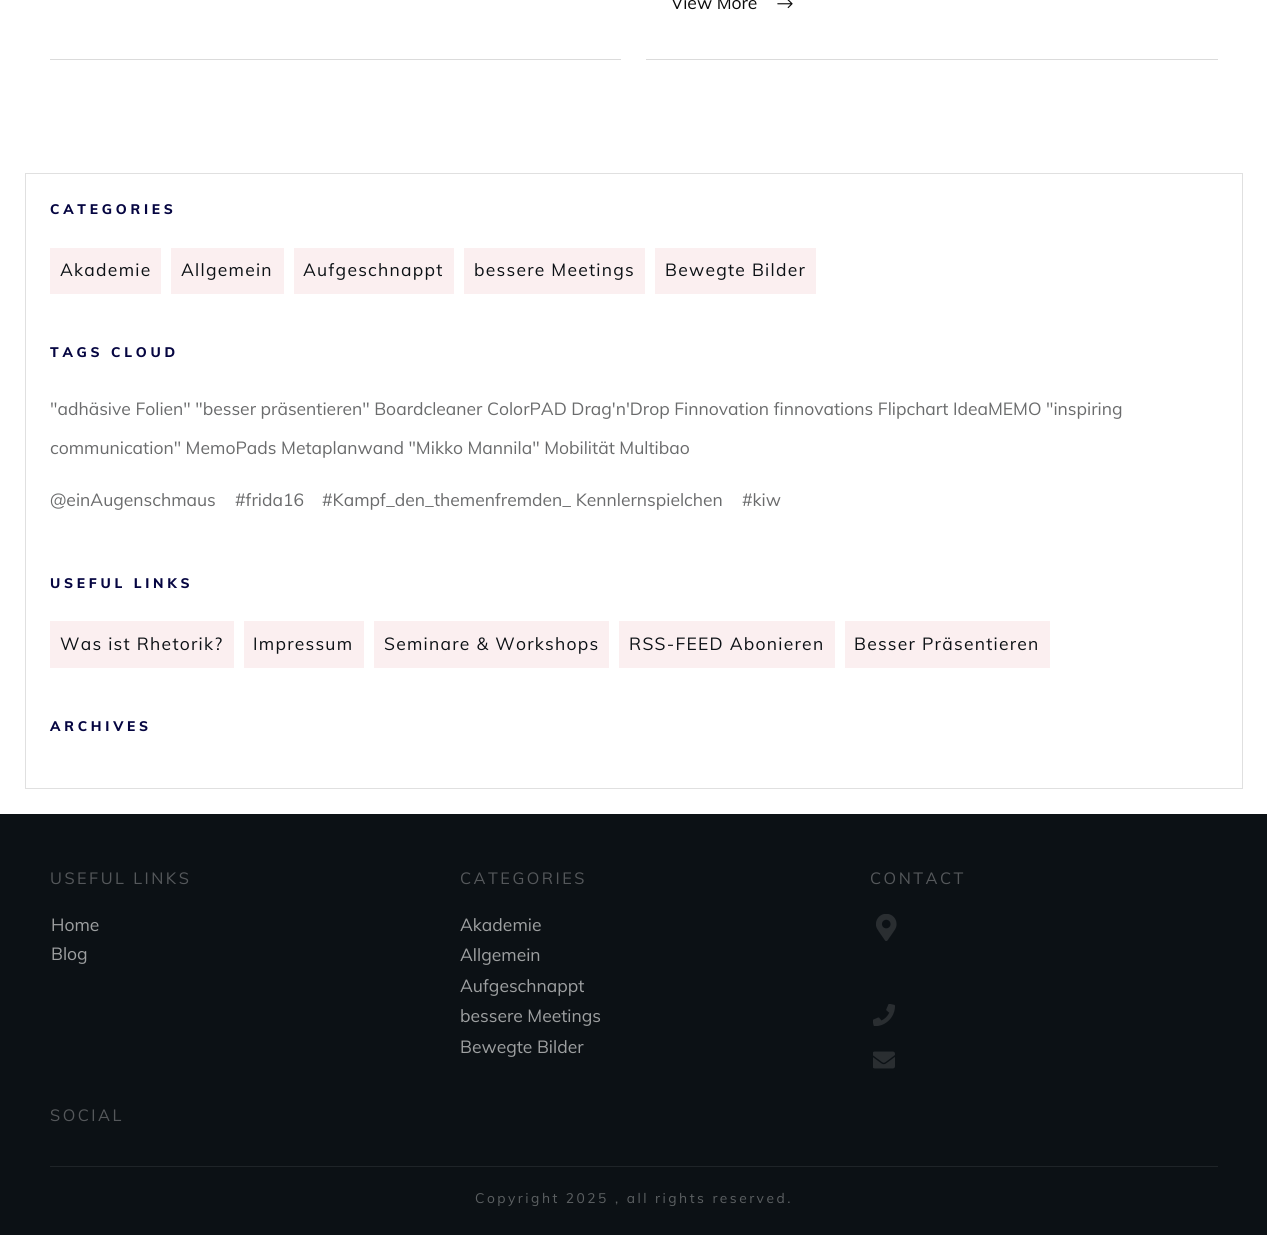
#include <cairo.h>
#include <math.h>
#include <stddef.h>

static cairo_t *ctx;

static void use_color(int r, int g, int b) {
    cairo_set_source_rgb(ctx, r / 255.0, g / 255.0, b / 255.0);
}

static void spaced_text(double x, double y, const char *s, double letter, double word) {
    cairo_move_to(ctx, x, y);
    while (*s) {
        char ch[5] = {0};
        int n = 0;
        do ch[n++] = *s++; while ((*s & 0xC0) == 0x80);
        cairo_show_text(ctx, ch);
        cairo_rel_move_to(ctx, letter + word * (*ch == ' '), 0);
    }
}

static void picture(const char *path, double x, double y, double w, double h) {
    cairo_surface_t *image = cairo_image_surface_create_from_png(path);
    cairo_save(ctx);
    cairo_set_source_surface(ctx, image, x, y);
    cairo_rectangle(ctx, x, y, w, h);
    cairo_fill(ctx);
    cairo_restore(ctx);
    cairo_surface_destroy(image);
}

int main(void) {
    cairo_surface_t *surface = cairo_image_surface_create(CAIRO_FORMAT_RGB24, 1267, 1235);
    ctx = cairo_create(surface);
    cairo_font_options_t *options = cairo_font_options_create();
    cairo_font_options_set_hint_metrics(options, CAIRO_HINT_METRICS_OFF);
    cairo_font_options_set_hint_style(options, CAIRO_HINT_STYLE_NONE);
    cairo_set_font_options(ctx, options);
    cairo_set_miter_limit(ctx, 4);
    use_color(255, 255, 255);
    cairo_paint(ctx);
    use_color(219, 219, 219);
    cairo_rectangle(ctx, 646, 59, 572, 1);
    cairo_fill(ctx);
    cairo_select_font_face(ctx, "Muli", CAIRO_FONT_SLANT_NORMAL, CAIRO_FONT_WEIGHT_NORMAL);
    cairo_set_font_size(ctx, 17.5);
    use_color(10, 10, 10);
    cairo_move_to(ctx, 671, 9);
    cairo_show_text(ctx, "View More");
    picture("img1.png", 777, 0, 16, 9);
    use_color(219, 219, 219);
    cairo_rectangle(ctx, 50, 59, 571, 1);
    cairo_fill(ctx);
    cairo_rectangle(ctx, 25.5, 173.5, 1217, 615);
    use_color(224, 224, 224);
    cairo_set_line_width(ctx, 1);
    cairo_stroke(ctx);
    cairo_select_font_face(ctx, "Muli ExtraBold", CAIRO_FONT_SLANT_NORMAL, CAIRO_FONT_WEIGHT_NORMAL);
    cairo_set_font_size(ctx, 13.75);
    use_color(5, 5, 65);
    spaced_text(50, 214, "CATEGORIES", 3.75, 0);
    use_color(251, 239, 240);
    cairo_rectangle(ctx, 50, 248, 111, 46);
    cairo_fill(ctx);
    cairo_select_font_face(ctx, "Muli", CAIRO_FONT_SLANT_NORMAL, CAIRO_FONT_WEIGHT_NORMAL);
    cairo_set_font_size(ctx, 17.5);
    use_color(12, 17, 21);
    spaced_text(60, 276, "Akademie", 1.25, 0);
    use_color(251, 239, 240);
    cairo_rectangle(ctx, 171, 248, 113, 46);
    cairo_fill(ctx);
    use_color(12, 17, 21);
    spaced_text(181, 276, "Allgemein", 1.25, 0);
    use_color(251, 239, 240);
    cairo_rectangle(ctx, 294, 248, 160, 46);
    cairo_fill(ctx);
    use_color(12, 17, 21);
    spaced_text(303, 276, "Aufgeschnappt", 1.25, 0);
    use_color(251, 239, 240);
    cairo_rectangle(ctx, 464, 248, 181, 46);
    cairo_fill(ctx);
    use_color(12, 17, 21);
    spaced_text(474, 276, "bessere Meetings", 1.25, 0);
    use_color(251, 239, 240);
    cairo_rectangle(ctx, 655, 248, 161, 46);
    cairo_fill(ctx);
    use_color(12, 17, 21);
    spaced_text(665, 276, "Bewegte Bilder", 1.25, 0);
    cairo_select_font_face(ctx, "Muli ExtraBold", CAIRO_FONT_SLANT_NORMAL, CAIRO_FONT_WEIGHT_NORMAL);
    cairo_set_font_size(ctx, 13.75);
    use_color(5, 5, 65);
    spaced_text(50, 357, "TAGS CLOUD", 3.75, 0);
    cairo_select_font_face(ctx, "Muli", CAIRO_FONT_SLANT_NORMAL, CAIRO_FONT_WEIGHT_NORMAL);
    cairo_set_font_size(ctx, 17.5);
    use_color(106, 107, 108);
    cairo_move_to(ctx, 50, 415);
    cairo_show_text(ctx, "\"adhäsive Folien\" \"besser präsentieren\" Boardcleaner ColorPAD Drag'n'Drop Finnovation finnovations Flipchart IdeaMEMO \"inspiring");
    cairo_move_to(ctx, 50, 454);
    cairo_show_text(ctx, "communication\" MemoPads Metaplanwand \"Mikko Mannila\" Mobilität Multibao");
    cairo_move_to(ctx, 50, 506);
    cairo_show_text(ctx, "@einAugenschmaus");
    cairo_move_to(ctx, 235, 506);
    cairo_show_text(ctx, "#frida16");
    cairo_move_to(ctx, 322, 506);
    cairo_show_text(ctx, "#Kampf_den_themenfremden_ Kennlernspielchen");
    cairo_move_to(ctx, 742, 506);
    cairo_show_text(ctx, "#kiw");
    cairo_select_font_face(ctx, "Muli ExtraBold", CAIRO_FONT_SLANT_NORMAL, CAIRO_FONT_WEIGHT_NORMAL);
    cairo_set_font_size(ctx, 13.75);
    use_color(5, 5, 65);
    spaced_text(50, 588, "USEFUL LINKS", 3.75, 0);
    use_color(251, 239, 240);
    cairo_rectangle(ctx, 50, 621, 184, 47);
    cairo_fill(ctx);
    cairo_select_font_face(ctx, "Muli", CAIRO_FONT_SLANT_NORMAL, CAIRO_FONT_WEIGHT_NORMAL);
    cairo_set_font_size(ctx, 17.5);
    use_color(12, 17, 21);
    spaced_text(60, 650, "Was ist Rhetorik?", 1.25, 0);
    use_color(251, 239, 240);
    cairo_rectangle(ctx, 244, 621, 120, 47);
    cairo_fill(ctx);
    use_color(12, 17, 21);
    spaced_text(253, 650, "Impressum", 1.25, 0);
    use_color(251, 239, 240);
    cairo_rectangle(ctx, 374, 621, 235, 47);
    cairo_fill(ctx);
    use_color(12, 17, 21);
    spaced_text(384, 650, "Seminare & Workshops", 1.25, 0);
    use_color(251, 239, 240);
    cairo_rectangle(ctx, 619, 621, 216, 47);
    cairo_fill(ctx);
    use_color(12, 17, 21);
    spaced_text(629, 650, "RSS-FEED Abonieren", 1.25, 0);
    use_color(251, 239, 240);
    cairo_rectangle(ctx, 845, 621, 205, 47);
    cairo_fill(ctx);
    use_color(12, 17, 21);
    spaced_text(854, 650, "Besser Präsentieren", 1.25, 0);
    cairo_select_font_face(ctx, "Muli ExtraBold", CAIRO_FONT_SLANT_NORMAL, CAIRO_FONT_WEIGHT_NORMAL);
    cairo_set_font_size(ctx, 13.75);
    use_color(5, 5, 65);
    spaced_text(50, 731, "ARCHIVES", 3.75, 0);
    use_color(12, 17, 21);
    cairo_rectangle(ctx, 0, 814, 1267, 421);
    cairo_fill(ctx);
    use_color(31, 36, 40);
    cairo_rectangle(ctx, 50, 1166, 1168, 1);
    cairo_fill(ctx);
    cairo_select_font_face(ctx, "Muli", CAIRO_FONT_SLANT_NORMAL, CAIRO_FONT_WEIGHT_NORMAL);
    cairo_set_font_size(ctx, 16.25);
    use_color(85, 88, 91);
    spaced_text(50, 884, "USEFUL LINKS", 2.5, 0);
    cairo_set_font_size(ctx, 17.5);
    use_color(158, 160, 161);
    cairo_move_to(ctx, 51, 931);
    cairo_show_text(ctx, "Home");
    cairo_move_to(ctx, 51, 960);
    cairo_show_text(ctx, "Blog");
    cairo_set_font_size(ctx, 16.25);
    use_color(85, 88, 91);
    spaced_text(460, 884, "CATEGORIES", 2.5, 0);
    cairo_set_font_size(ctx, 17.5);
    use_color(158, 160, 161);
    cairo_move_to(ctx, 460, 931);
    cairo_show_text(ctx, "Akademie");
    cairo_move_to(ctx, 460, 961);
    cairo_show_text(ctx, "Allgemein");
    cairo_move_to(ctx, 460, 992);
    cairo_show_text(ctx, "Aufgeschnappt");
    cairo_move_to(ctx, 460, 1022);
    cairo_show_text(ctx, "bessere Meetings");
    cairo_move_to(ctx, 460, 1053);
    cairo_show_text(ctx, "Bewegte Bilder");
    cairo_set_font_size(ctx, 16.25);
    use_color(85, 88, 91);
    spaced_text(870, 884, "CONTACT", 2.5, 0);
    picture("img2.png", 876, 914, 21, 27);
    picture("img3.png", 873, 1004, 22, 22);
    picture("img4.png", 873, 1051, 22, 18);
    spaced_text(50, 1121, "SOCIAL", 2.5, 0);
    cairo_set_font_size(ctx, 13.75);
    use_color(92, 96, 98);
    spaced_text(475, 1203, "Copyright 2025 , all rights reserved.", 2.5, 0);
    cairo_surface_write_to_png(surface, "result.png");
    cairo_font_options_destroy(options);
    cairo_destroy(ctx);
    cairo_surface_destroy(surface);
    return 0;
}
